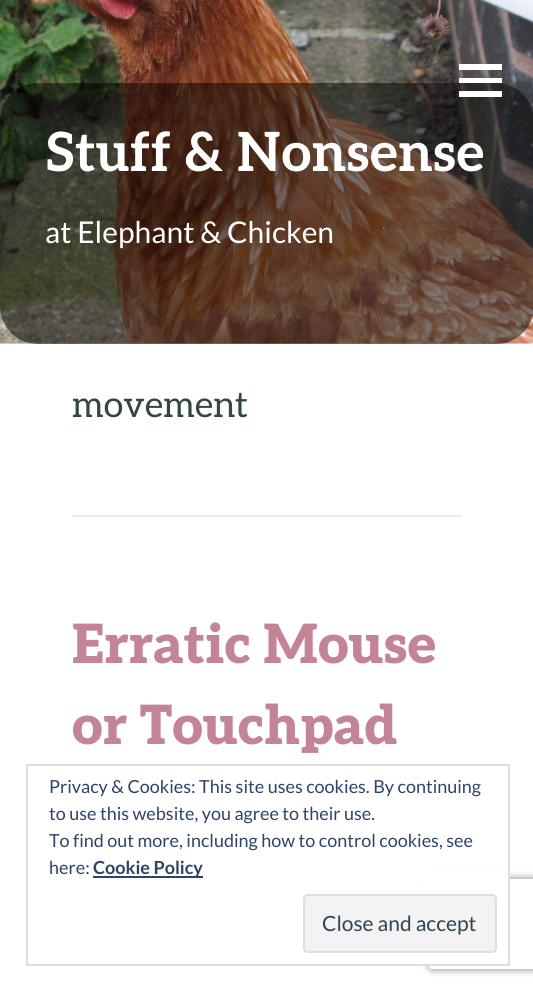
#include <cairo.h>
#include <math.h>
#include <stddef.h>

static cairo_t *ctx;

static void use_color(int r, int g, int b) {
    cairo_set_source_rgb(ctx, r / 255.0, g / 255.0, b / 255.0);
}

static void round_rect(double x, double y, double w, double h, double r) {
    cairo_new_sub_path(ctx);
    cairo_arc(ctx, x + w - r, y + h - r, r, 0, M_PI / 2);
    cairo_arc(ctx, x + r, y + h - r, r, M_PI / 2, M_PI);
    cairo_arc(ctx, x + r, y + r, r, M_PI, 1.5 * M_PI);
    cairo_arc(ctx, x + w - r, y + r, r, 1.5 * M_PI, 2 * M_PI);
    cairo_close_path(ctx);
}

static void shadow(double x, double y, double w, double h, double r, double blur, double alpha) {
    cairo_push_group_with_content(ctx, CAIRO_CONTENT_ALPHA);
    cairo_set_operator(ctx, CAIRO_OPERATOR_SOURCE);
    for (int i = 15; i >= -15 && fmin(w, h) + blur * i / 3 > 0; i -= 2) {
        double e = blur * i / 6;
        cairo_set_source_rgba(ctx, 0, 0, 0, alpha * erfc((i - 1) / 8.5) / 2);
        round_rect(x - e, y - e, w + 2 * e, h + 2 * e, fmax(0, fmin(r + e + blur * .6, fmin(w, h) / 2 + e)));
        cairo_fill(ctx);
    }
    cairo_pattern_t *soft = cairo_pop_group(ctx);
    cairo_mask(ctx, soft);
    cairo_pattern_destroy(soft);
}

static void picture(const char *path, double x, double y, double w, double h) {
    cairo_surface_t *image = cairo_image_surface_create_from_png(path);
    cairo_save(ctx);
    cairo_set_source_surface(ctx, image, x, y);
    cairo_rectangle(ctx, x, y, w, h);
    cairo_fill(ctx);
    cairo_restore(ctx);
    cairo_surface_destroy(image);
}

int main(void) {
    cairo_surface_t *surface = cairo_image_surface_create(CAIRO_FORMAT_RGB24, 533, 989);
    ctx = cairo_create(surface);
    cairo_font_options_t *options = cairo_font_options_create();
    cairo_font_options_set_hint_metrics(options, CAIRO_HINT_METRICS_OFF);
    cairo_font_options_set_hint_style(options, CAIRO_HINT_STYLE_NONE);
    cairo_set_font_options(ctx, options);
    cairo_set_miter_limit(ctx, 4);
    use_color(255, 255, 255);
    cairo_paint(ctx);
    use_color(245, 246, 246);
    cairo_rectangle(ctx, 0, 343, 533, 1);
    cairo_fill(ctx);
    picture("img1.png", 0, 0, 533, 344);
    cairo_set_source_rgba(ctx, 0, 0, 0, 0.5);
    round_rect(0, 83, 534, 261, 38);
    cairo_fill(ctx);
    cairo_select_font_face(ctx, "Aleo", CAIRO_FONT_SLANT_NORMAL, CAIRO_FONT_WEIGHT_BOLD);
    cairo_set_font_size(ctx, 54);
    use_color(255, 255, 255);
    cairo_move_to(ctx, 45, 171);
    cairo_show_text(ctx, "Stuff & Nonsense");
    cairo_select_font_face(ctx, "Lato", CAIRO_FONT_SLANT_NORMAL, CAIRO_FONT_WEIGHT_NORMAL);
    cairo_set_font_size(ctx, 30);
    cairo_move_to(ctx, 45, 243);
    cairo_show_text(ctx, "at Elephant & Chicken");
    cairo_new_path(ctx);
    cairo_move_to(ctx, 459, 97);
    cairo_line_to(ctx, 459, 91);
    cairo_line_to(ctx, 502, 91);
    cairo_line_to(ctx, 502, 97);
    cairo_close_path(ctx);
    cairo_move_to(ctx, 459, 64);
    cairo_line_to(ctx, 502, 64);
    cairo_line_to(ctx, 502, 70);
    cairo_line_to(ctx, 459, 70);
    cairo_close_path(ctx);
    cairo_move_to(ctx, 459, 83);
    cairo_line_to(ctx, 459, 78);
    cairo_line_to(ctx, 502, 78);
    cairo_line_to(ctx, 502, 83);
    cairo_close_path(ctx);
    cairo_fill(ctx);
    cairo_select_font_face(ctx, "Aleo", CAIRO_FONT_SLANT_NORMAL, CAIRO_FONT_WEIGHT_NORMAL);
    cairo_set_font_size(ctx, 36);
    use_color(51, 71, 61);
    cairo_move_to(ctx, 72, 417);
    cairo_show_text(ctx, "movement");
    use_color(235, 237, 236);
    cairo_rectangle(ctx, 72, 515, 390, 2);
    cairo_fill(ctx);
    cairo_select_font_face(ctx, "Aleo Black", CAIRO_FONT_SLANT_NORMAL, CAIRO_FONT_WEIGHT_NORMAL);
    cairo_set_font_size(ctx, 54);
    use_color(195, 133, 150);
    cairo_move_to(ctx, 72, 663);
    cairo_show_text(ctx, "Erratic Mouse");
    cairo_move_to(ctx, 72, 744);
    cairo_show_text(ctx, "or Touchpad");
    cairo_save(ctx);
    cairo_set_fill_rule(ctx, CAIRO_FILL_RULE_EVEN_ODD);
    cairo_new_path(ctx);
    cairo_move_to(ctx, 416, 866);
    cairo_line_to(ctx, 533, 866);
    cairo_line_to(ctx, 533, 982);
    cairo_line_to(ctx, 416, 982);
    cairo_close_path(ctx);
    cairo_move_to(ctx, 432, 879);
    cairo_line_to(ctx, 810, 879);
    cairo_curve_to(ctx, 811.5, 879, 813, 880.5, 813, 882);
    cairo_line_to(ctx, 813, 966);
    cairo_curve_to(ctx, 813, 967.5, 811.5, 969, 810, 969);
    cairo_line_to(ctx, 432, 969);
    cairo_curve_to(ctx, 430.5, 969, 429, 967.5, 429, 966);
    cairo_line_to(ctx, 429, 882);
    cairo_curve_to(ctx, 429, 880.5, 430.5, 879, 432, 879);
    cairo_close_path(ctx);
    cairo_clip(ctx);
    use_color(128, 128, 128);
    shadow(429, 879, 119, 90, 3, 4, 1);
    cairo_restore(ctx);
    use_color(255, 255, 255);
    cairo_rectangle(ctx, 421, 871, 87, 93);
    cairo_fill(ctx);
    cairo_rectangle(ctx, 27, 765, 482, 200);
    use_color(222, 222, 222);
    cairo_stroke(ctx);
    cairo_select_font_face(ctx, "Lato", CAIRO_FONT_SLANT_NORMAL, CAIRO_FONT_WEIGHT_NORMAL);
    cairo_set_font_size(ctx, 18);
    use_color(46, 68, 103);
    cairo_move_to(ctx, 49, 793);
    cairo_show_text(ctx, "Privacy & Cookies: This site uses cookies. By continuing");
    cairo_move_to(ctx, 49, 820);
    cairo_show_text(ctx, "to use this website, you agree to their use.");
    cairo_move_to(ctx, 49, 847);
    cairo_show_text(ctx, "To find out more, including how to control cookies, see");
    cairo_move_to(ctx, 49, 874);
    cairo_show_text(ctx, "here:");
    cairo_rectangle(ctx, 93, 876, 110, 2);
    cairo_fill(ctx);
    cairo_select_font_face(ctx, "Lato", CAIRO_FONT_SLANT_NORMAL, CAIRO_FONT_WEIGHT_BOLD);
    cairo_move_to(ctx, 93, 874);
    cairo_show_text(ctx, "Cookie Policy");
    use_color(243, 243, 243);
    round_rect(304, 895, 192, 57, 4);
    cairo_fill_preserve(ctx);
    use_color(222, 222, 222);
    cairo_stroke(ctx);
    cairo_select_font_face(ctx, "Lato", CAIRO_FONT_SLANT_NORMAL, CAIRO_FONT_WEIGHT_NORMAL);
    cairo_set_font_size(ctx, 21);
    use_color(46, 68, 83);
    cairo_move_to(ctx, 322, 931);
    cairo_show_text(ctx, "Close and accept");
    cairo_surface_write_to_png(surface, "result.png");
    cairo_font_options_destroy(options);
    cairo_destroy(ctx);
    cairo_surface_destroy(surface);
    return 0;
}
